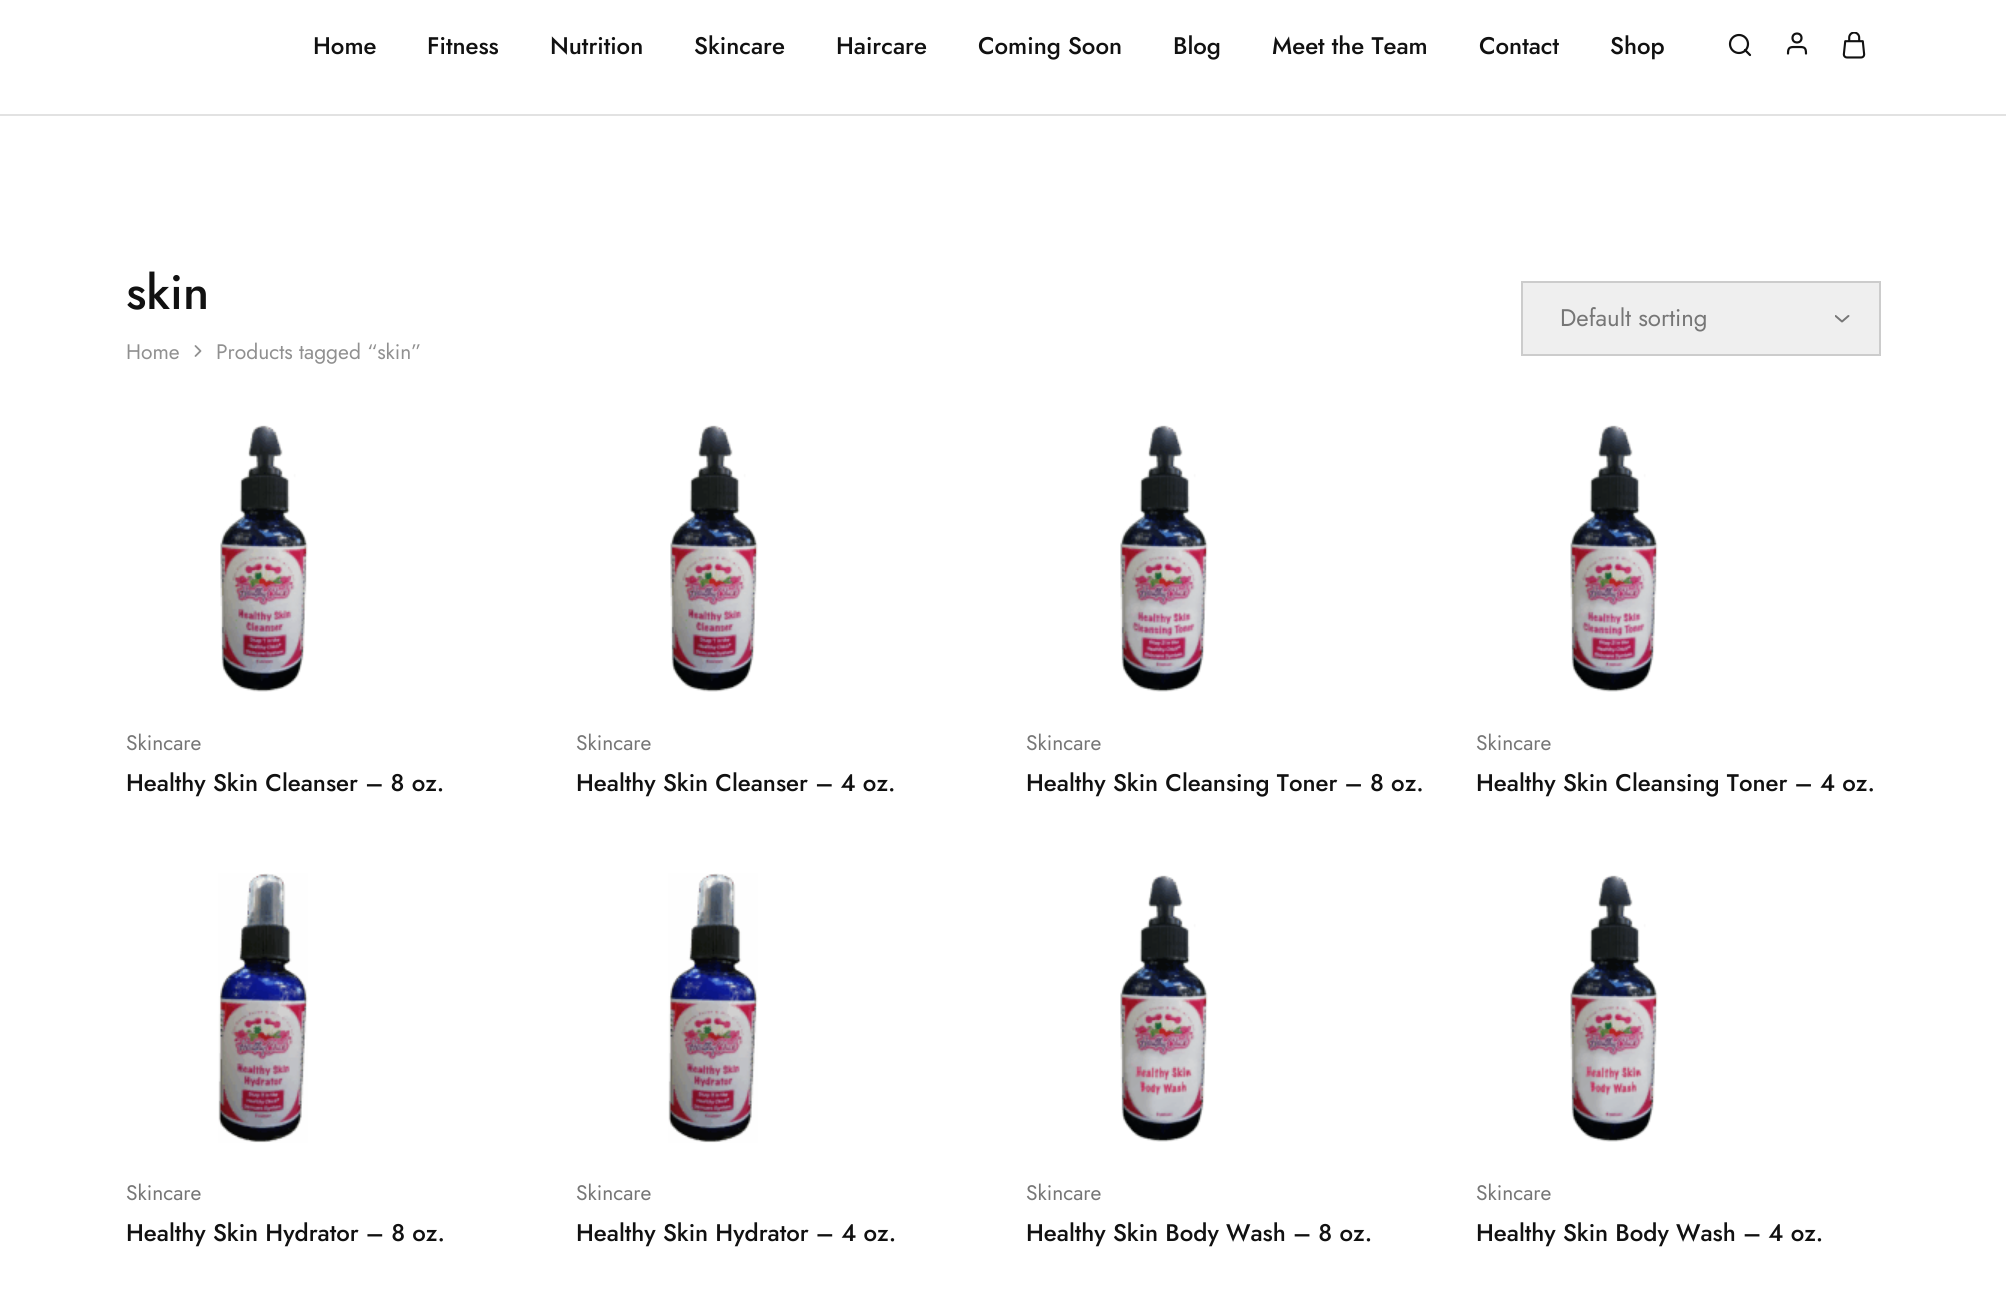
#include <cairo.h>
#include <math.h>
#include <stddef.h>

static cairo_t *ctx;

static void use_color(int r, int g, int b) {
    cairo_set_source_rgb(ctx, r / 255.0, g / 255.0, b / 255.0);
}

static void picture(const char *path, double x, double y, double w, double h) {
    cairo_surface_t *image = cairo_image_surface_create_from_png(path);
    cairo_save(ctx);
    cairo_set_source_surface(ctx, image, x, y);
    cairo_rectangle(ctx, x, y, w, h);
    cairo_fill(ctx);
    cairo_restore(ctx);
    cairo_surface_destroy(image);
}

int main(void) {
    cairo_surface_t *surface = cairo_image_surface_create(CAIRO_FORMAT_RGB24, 2006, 1305);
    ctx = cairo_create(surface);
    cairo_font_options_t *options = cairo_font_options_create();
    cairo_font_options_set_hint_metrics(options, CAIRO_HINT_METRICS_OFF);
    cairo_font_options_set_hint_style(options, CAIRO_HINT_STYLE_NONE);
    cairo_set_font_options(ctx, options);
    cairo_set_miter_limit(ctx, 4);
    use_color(255, 255, 255);
    cairo_paint(ctx);
    use_color(226, 226, 226);
    cairo_rectangle(ctx, 0, 114, 2006, 2);
    cairo_fill(ctx);
    cairo_select_font_face(ctx, "Jost Medium", CAIRO_FONT_SLANT_NORMAL, CAIRO_FONT_WEIGHT_NORMAL);
    cairo_set_font_size(ctx, 24);
    use_color(17, 17, 17);
    cairo_move_to(ctx, 313, 54);
    cairo_show_text(ctx, "Home");
    cairo_move_to(ctx, 427, 54);
    cairo_show_text(ctx, "Fitness");
    cairo_move_to(ctx, 550, 54);
    cairo_show_text(ctx, "Nutrition");
    cairo_move_to(ctx, 694, 54);
    cairo_show_text(ctx, "Skincare");
    cairo_move_to(ctx, 836, 54);
    cairo_show_text(ctx, "Haircare");
    cairo_move_to(ctx, 978, 54);
    cairo_show_text(ctx, "Coming Soon");
    cairo_move_to(ctx, 1173, 54);
    cairo_show_text(ctx, "Blog");
    cairo_move_to(ctx, 1272, 54);
    cairo_show_text(ctx, "Meet the Team");
    cairo_move_to(ctx, 1479, 54);
    cairo_show_text(ctx, "Contact");
    cairo_move_to(ctx, 1610, 54);
    cairo_show_text(ctx, "Shop");
    cairo_new_path(ctx);
    cairo_arc(ctx, 1739, 44, 9, 0, 2 * M_PI);
    cairo_set_line_width(ctx, 2.2);
    cairo_stroke(ctx);
    cairo_new_path(ctx);
    cairo_move_to(ctx, 1750, 55);
    cairo_line_to(ctx, 1745, 50);
    cairo_set_line_cap(ctx, CAIRO_LINE_CAP_ROUND);
    cairo_set_line_join(ctx, CAIRO_LINE_JOIN_ROUND);
    cairo_stroke(ctx);
    cairo_new_path(ctx);
    cairo_move_to(ctx, 1806, 53.5);
    cairo_curve_to(ctx, 1806, 46.5, 1803.5, 47, 1797, 47);
    cairo_curve_to(ctx, 1790.5, 47, 1788, 46.5, 1788, 53.5);
    cairo_stroke(ctx);
    cairo_arc(ctx, 1797, 38, 4.5, 0, 2 * M_PI);
    cairo_set_line_cap(ctx, CAIRO_LINE_CAP_BUTT);
    cairo_set_line_join(ctx, CAIRO_LINE_JOIN_MITER);
    cairo_stroke(ctx);
    picture("img1.png", 1842, 32, 24, 27);
    cairo_set_font_size(ctx, 48);
    cairo_move_to(ctx, 126, 309);
    cairo_show_text(ctx, "skin");
    cairo_select_font_face(ctx, "Jost", CAIRO_FONT_SLANT_NORMAL, CAIRO_FONT_WEIGHT_NORMAL);
    cairo_set_font_size(ctx, 21);
    use_color(144, 144, 144);
    cairo_move_to(ctx, 126, 359);
    cairo_show_text(ctx, "Home");
    cairo_new_path(ctx);
    cairo_move_to(ctx, 195.5, 356);
    cairo_line_to(ctx, 200.5, 351);
    cairo_line_to(ctx, 195.5, 346);
    cairo_set_line_width(ctx, 1.8);
    cairo_set_line_cap(ctx, CAIRO_LINE_CAP_ROUND);
    cairo_set_line_join(ctx, CAIRO_LINE_JOIN_ROUND);
    cairo_stroke(ctx);
    cairo_move_to(ctx, 216, 359);
    cairo_show_text(ctx, "Products tagged “skin”");
    use_color(239, 239, 239);
    cairo_rectangle(ctx, 1523, 283, 356, 71);
    cairo_fill(ctx);
    picture("img2.png", 1835, 315, 15, 8);
    cairo_rectangle(ctx, 1522, 282, 358, 73);
    use_color(204, 204, 204);
    cairo_set_line_width(ctx, 2);
    cairo_set_line_cap(ctx, CAIRO_LINE_CAP_BUTT);
    cairo_set_line_join(ctx, CAIRO_LINE_JOIN_MITER);
    cairo_stroke(ctx);
    cairo_set_font_size(ctx, 24);
    use_color(118, 118, 118);
    cairo_move_to(ctx, 1560, 326);
    cairo_show_text(ctx, "Default sorting");
    picture("img3.png", 220, 425, 88, 267);
    cairo_set_font_size(ctx, 21);
    cairo_move_to(ctx, 126, 750);
    cairo_show_text(ctx, "Skincare");
    cairo_select_font_face(ctx, "Jost Medium", CAIRO_FONT_SLANT_NORMAL, CAIRO_FONT_WEIGHT_NORMAL);
    cairo_set_font_size(ctx, 24);
    use_color(17, 17, 17);
    cairo_move_to(ctx, 126, 791);
    cairo_show_text(ctx, "Healthy Skin Cleanser – 8 oz.");
    picture("img4.png", 670, 425, 88, 267);
    cairo_select_font_face(ctx, "Jost", CAIRO_FONT_SLANT_NORMAL, CAIRO_FONT_WEIGHT_NORMAL);
    cairo_set_font_size(ctx, 21);
    use_color(118, 118, 118);
    cairo_move_to(ctx, 576, 750);
    cairo_show_text(ctx, "Skincare");
    cairo_select_font_face(ctx, "Jost Medium", CAIRO_FONT_SLANT_NORMAL, CAIRO_FONT_WEIGHT_NORMAL);
    cairo_set_font_size(ctx, 24);
    use_color(17, 17, 17);
    cairo_move_to(ctx, 576, 791);
    cairo_show_text(ctx, "Healthy Skin Cleanser – 4 oz.");
    picture("img5.png", 1120, 425, 88, 267);
    cairo_select_font_face(ctx, "Jost", CAIRO_FONT_SLANT_NORMAL, CAIRO_FONT_WEIGHT_NORMAL);
    cairo_set_font_size(ctx, 21);
    use_color(118, 118, 118);
    cairo_move_to(ctx, 1026, 750);
    cairo_show_text(ctx, "Skincare");
    cairo_select_font_face(ctx, "Jost Medium", CAIRO_FONT_SLANT_NORMAL, CAIRO_FONT_WEIGHT_NORMAL);
    cairo_set_font_size(ctx, 24);
    use_color(17, 17, 17);
    cairo_move_to(ctx, 1026, 791);
    cairo_show_text(ctx, "Healthy Skin Cleansing Toner – 8 oz.");
    picture("img6.png", 1570, 425, 88, 267);
    cairo_select_font_face(ctx, "Jost", CAIRO_FONT_SLANT_NORMAL, CAIRO_FONT_WEIGHT_NORMAL);
    cairo_set_font_size(ctx, 21);
    use_color(118, 118, 118);
    cairo_move_to(ctx, 1476, 750);
    cairo_show_text(ctx, "Skincare");
    cairo_select_font_face(ctx, "Jost Medium", CAIRO_FONT_SLANT_NORMAL, CAIRO_FONT_WEIGHT_NORMAL);
    cairo_set_font_size(ctx, 24);
    use_color(17, 17, 17);
    cairo_move_to(ctx, 1476, 791);
    cairo_show_text(ctx, "Healthy Skin Cleansing Toner – 4 oz.");
    picture("img7.png", 218, 873, 90, 270);
    cairo_select_font_face(ctx, "Jost", CAIRO_FONT_SLANT_NORMAL, CAIRO_FONT_WEIGHT_NORMAL);
    cairo_set_font_size(ctx, 21);
    use_color(118, 118, 118);
    cairo_move_to(ctx, 126, 1200);
    cairo_show_text(ctx, "Skincare");
    cairo_select_font_face(ctx, "Jost Medium", CAIRO_FONT_SLANT_NORMAL, CAIRO_FONT_WEIGHT_NORMAL);
    cairo_set_font_size(ctx, 24);
    use_color(17, 17, 17);
    cairo_move_to(ctx, 126, 1241);
    cairo_show_text(ctx, "Healthy Skin Hydrator – 8 oz.");
    picture("img8.png", 668, 873, 90, 270);
    cairo_select_font_face(ctx, "Jost", CAIRO_FONT_SLANT_NORMAL, CAIRO_FONT_WEIGHT_NORMAL);
    cairo_set_font_size(ctx, 21);
    use_color(118, 118, 118);
    cairo_move_to(ctx, 576, 1200);
    cairo_show_text(ctx, "Skincare");
    cairo_select_font_face(ctx, "Jost Medium", CAIRO_FONT_SLANT_NORMAL, CAIRO_FONT_WEIGHT_NORMAL);
    cairo_set_font_size(ctx, 24);
    use_color(17, 17, 17);
    cairo_move_to(ctx, 576, 1241);
    cairo_show_text(ctx, "Healthy Skin Hydrator – 4 oz.");
    picture("img9.png", 1120, 875, 88, 267);
    cairo_select_font_face(ctx, "Jost", CAIRO_FONT_SLANT_NORMAL, CAIRO_FONT_WEIGHT_NORMAL);
    cairo_set_font_size(ctx, 21);
    use_color(118, 118, 118);
    cairo_move_to(ctx, 1026, 1200);
    cairo_show_text(ctx, "Skincare");
    cairo_select_font_face(ctx, "Jost Medium", CAIRO_FONT_SLANT_NORMAL, CAIRO_FONT_WEIGHT_NORMAL);
    cairo_set_font_size(ctx, 24);
    use_color(17, 17, 17);
    cairo_move_to(ctx, 1026, 1241);
    cairo_show_text(ctx, "Healthy Skin Body Wash – 8 oz.");
    picture("img10.png", 1570, 875, 88, 267);
    cairo_select_font_face(ctx, "Jost", CAIRO_FONT_SLANT_NORMAL, CAIRO_FONT_WEIGHT_NORMAL);
    cairo_set_font_size(ctx, 21);
    use_color(118, 118, 118);
    cairo_move_to(ctx, 1476, 1200);
    cairo_show_text(ctx, "Skincare");
    cairo_select_font_face(ctx, "Jost Medium", CAIRO_FONT_SLANT_NORMAL, CAIRO_FONT_WEIGHT_NORMAL);
    cairo_set_font_size(ctx, 24);
    use_color(17, 17, 17);
    cairo_move_to(ctx, 1476, 1241);
    cairo_show_text(ctx, "Healthy Skin Body Wash – 4 oz.");
    cairo_surface_write_to_png(surface, "result.png");
    cairo_font_options_destroy(options);
    cairo_destroy(ctx);
    cairo_surface_destroy(surface);
    return 0;
}
